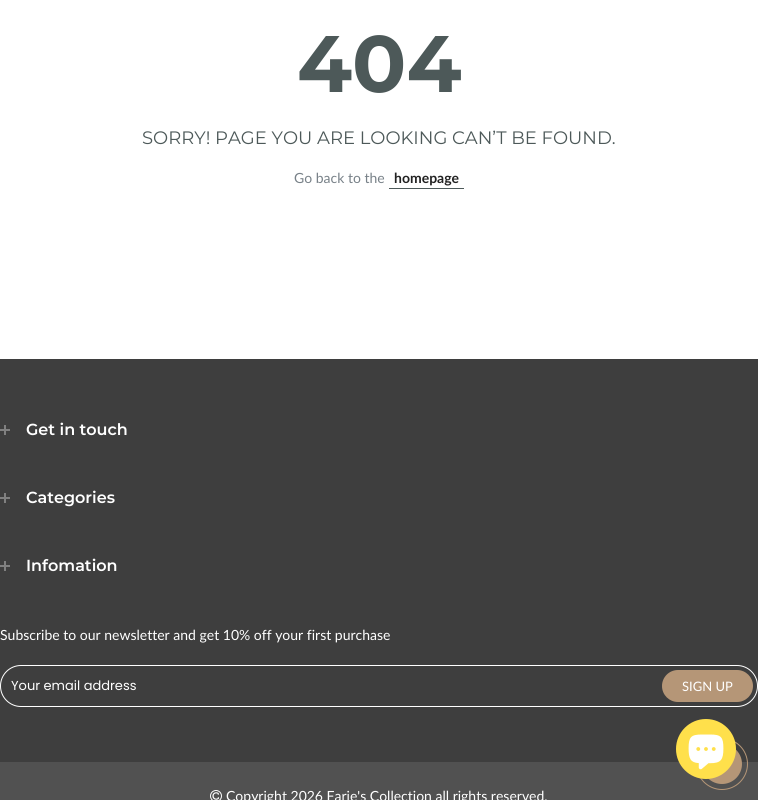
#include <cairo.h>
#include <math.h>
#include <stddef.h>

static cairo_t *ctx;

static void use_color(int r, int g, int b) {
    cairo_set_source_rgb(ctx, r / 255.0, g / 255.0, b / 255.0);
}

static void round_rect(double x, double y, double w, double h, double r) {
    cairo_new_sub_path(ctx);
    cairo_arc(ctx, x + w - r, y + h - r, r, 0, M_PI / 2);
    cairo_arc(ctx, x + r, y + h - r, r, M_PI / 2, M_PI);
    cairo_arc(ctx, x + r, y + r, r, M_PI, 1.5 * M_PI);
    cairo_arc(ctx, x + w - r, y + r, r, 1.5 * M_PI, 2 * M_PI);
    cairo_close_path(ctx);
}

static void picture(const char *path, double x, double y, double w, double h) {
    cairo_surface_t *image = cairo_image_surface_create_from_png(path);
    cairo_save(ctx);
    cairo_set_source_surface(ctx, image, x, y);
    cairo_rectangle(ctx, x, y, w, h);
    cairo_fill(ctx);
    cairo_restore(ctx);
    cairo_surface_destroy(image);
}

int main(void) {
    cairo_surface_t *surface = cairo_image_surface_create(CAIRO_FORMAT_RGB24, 758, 800);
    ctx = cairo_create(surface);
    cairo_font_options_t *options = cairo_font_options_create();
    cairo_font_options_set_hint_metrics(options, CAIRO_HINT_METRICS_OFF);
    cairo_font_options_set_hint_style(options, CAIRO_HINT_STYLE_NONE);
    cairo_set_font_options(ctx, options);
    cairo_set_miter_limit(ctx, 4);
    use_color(255, 255, 255);
    cairo_paint(ctx);
    use_color(81, 81, 81);
    cairo_rectangle(ctx, 0, 762, 758, 38);
    cairo_fill(ctx);
    cairo_select_font_face(ctx, "Montserrat", CAIRO_FONT_SLANT_NORMAL, CAIRO_FONT_WEIGHT_BOLD);
    cairo_set_font_size(ctx, 80);
    use_color(77, 89, 89);
    cairo_move_to(ctx, 297, 92);
    cairo_show_text(ctx, "404");
    cairo_select_font_face(ctx, "Montserrat", CAIRO_FONT_SLANT_NORMAL, CAIRO_FONT_WEIGHT_NORMAL);
    cairo_set_font_size(ctx, 18);
    cairo_move_to(ctx, 142, 144);
    cairo_show_text(ctx, "SORRY! PAGE YOU ARE LOOKING CAN’T BE FOUND.");
    cairo_select_font_face(ctx, "Lato", CAIRO_FONT_SLANT_NORMAL, CAIRO_FONT_WEIGHT_NORMAL);
    cairo_set_font_size(ctx, 14);
    use_color(120, 129, 136);
    cairo_move_to(ctx, 294, 183);
    cairo_show_text(ctx, "Go back to the");
    cairo_select_font_face(ctx, "Lato", CAIRO_FONT_SLANT_NORMAL, CAIRO_FONT_WEIGHT_BOLD);
    use_color(34, 34, 34);
    cairo_move_to(ctx, 394, 183);
    cairo_show_text(ctx, "homepage");
    use_color(77, 89, 89);
    cairo_rectangle(ctx, 389, 188, 75, 1);
    cairo_fill(ctx);
    use_color(62, 62, 62);
    cairo_rectangle(ctx, 0, 359, 758, 403);
    cairo_fill(ctx);
    use_color(128, 128, 128);
    cairo_rectangle(ctx, 4, 425, 2, 10);
    cairo_fill(ctx);
    cairo_rectangle(ctx, 0, 429, 10, 2);
    cairo_fill(ctx);
    cairo_select_font_face(ctx, "Montserrat SemiBold", CAIRO_FONT_SLANT_NORMAL, CAIRO_FONT_WEIGHT_NORMAL);
    cairo_set_font_size(ctx, 16);
    use_color(255, 255, 255);
    cairo_move_to(ctx, 26, 435);
    cairo_show_text(ctx, "Get in touch");
    use_color(128, 128, 128);
    cairo_rectangle(ctx, 4, 493, 2, 10);
    cairo_fill(ctx);
    cairo_rectangle(ctx, 0, 497, 10, 2);
    cairo_fill(ctx);
    use_color(255, 255, 255);
    cairo_move_to(ctx, 26, 503);
    cairo_show_text(ctx, "Categories");
    use_color(128, 128, 128);
    cairo_rectangle(ctx, 4, 561, 2, 10);
    cairo_fill(ctx);
    cairo_rectangle(ctx, 0, 565, 10, 2);
    cairo_fill(ctx);
    use_color(255, 255, 255);
    cairo_move_to(ctx, 26, 571);
    cairo_show_text(ctx, "Infomation");
    cairo_select_font_face(ctx, "Lato", CAIRO_FONT_SLANT_NORMAL, CAIRO_FONT_WEIGHT_NORMAL);
    cairo_set_font_size(ctx, 14);
    cairo_move_to(ctx, 0, 640);
    cairo_show_text(ctx, "Subscribe to our newsletter and get 10% off your first purchase");
    round_rect(0.5, 665.5, 757, 41, 20.5);
    cairo_set_line_width(ctx, 1);
    cairo_stroke(ctx);
    cairo_select_font_face(ctx, "Poppins", CAIRO_FONT_SLANT_NORMAL, CAIRO_FONT_WEIGHT_NORMAL);
    cairo_set_font_size(ctx, 13);
    cairo_move_to(ctx, 11, 690);
    cairo_show_text(ctx, "Your email address");
    use_color(181, 150, 119);
    round_rect(662, 670, 91, 32, 16);
    cairo_fill(ctx);
    cairo_select_font_face(ctx, "Lato", CAIRO_FONT_SLANT_NORMAL, CAIRO_FONT_WEIGHT_NORMAL);
    use_color(255, 255, 255);
    cairo_move_to(ctx, 682, 691);
    cairo_show_text(ctx, "SIGN UP");
    picture("img1.png", 210, 790, 12, 10);
    cairo_set_font_size(ctx, 14);
    cairo_move_to(ctx, 226, 801);
    cairo_show_text(ctx, "Copyright 2026 Farie's Collection all rights reserved.");
    cairo_new_path(ctx);
    cairo_arc(ctx, 722, 764, 25.5, 0, 2 * M_PI);
    use_color(181, 150, 119);
    cairo_stroke(ctx);
    cairo_arc(ctx, 722, 764, 20, 0, 2 * M_PI);
    cairo_fill(ctx);
    use_color(255, 224, 75);
    cairo_arc(ctx, 706, 749, 30, 0, 2 * M_PI);
    cairo_fill(ctx);
    picture("img2.png", 688, 734, 36, 36);
    cairo_surface_write_to_png(surface, "result.png");
    cairo_font_options_destroy(options);
    cairo_destroy(ctx);
    cairo_surface_destroy(surface);
    return 0;
}
